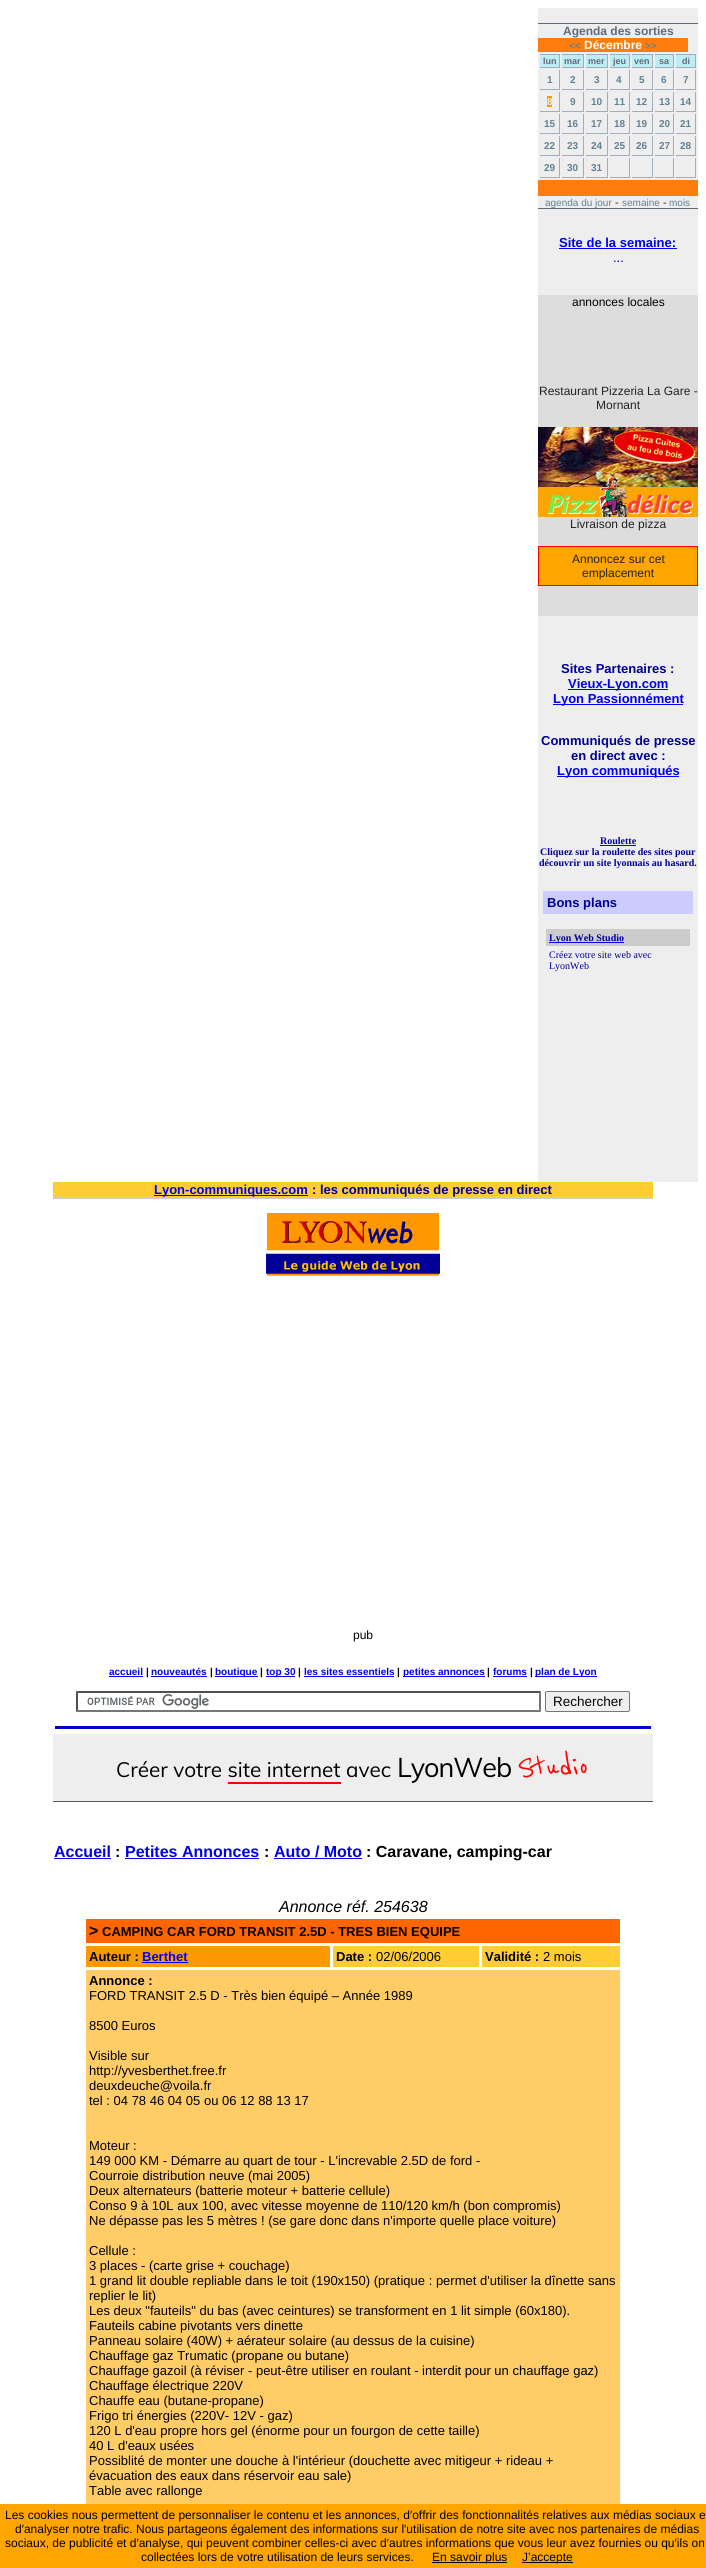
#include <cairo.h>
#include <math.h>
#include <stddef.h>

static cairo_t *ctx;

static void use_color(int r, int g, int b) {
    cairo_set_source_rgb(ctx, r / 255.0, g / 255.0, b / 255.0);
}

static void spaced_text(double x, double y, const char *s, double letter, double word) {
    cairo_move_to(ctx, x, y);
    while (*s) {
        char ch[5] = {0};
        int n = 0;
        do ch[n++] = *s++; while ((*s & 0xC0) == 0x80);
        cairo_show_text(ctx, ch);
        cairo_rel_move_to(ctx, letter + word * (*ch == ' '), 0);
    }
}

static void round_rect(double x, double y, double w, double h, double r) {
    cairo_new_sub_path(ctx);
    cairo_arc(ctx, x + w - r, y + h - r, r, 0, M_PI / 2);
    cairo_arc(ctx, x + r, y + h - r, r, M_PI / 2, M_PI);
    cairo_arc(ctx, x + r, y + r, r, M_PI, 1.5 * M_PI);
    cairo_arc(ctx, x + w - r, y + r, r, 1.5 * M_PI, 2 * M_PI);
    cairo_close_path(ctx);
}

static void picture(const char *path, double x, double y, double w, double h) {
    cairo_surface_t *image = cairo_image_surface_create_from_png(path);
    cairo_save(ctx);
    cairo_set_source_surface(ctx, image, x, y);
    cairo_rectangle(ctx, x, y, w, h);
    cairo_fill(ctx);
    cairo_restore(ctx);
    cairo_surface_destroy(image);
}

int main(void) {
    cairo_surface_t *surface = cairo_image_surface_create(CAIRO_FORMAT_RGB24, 706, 2568);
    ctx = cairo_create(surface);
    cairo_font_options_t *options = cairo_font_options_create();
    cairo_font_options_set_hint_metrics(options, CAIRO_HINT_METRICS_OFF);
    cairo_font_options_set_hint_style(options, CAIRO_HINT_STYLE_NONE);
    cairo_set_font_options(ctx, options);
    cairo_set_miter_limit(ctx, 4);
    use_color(255, 255, 255);
    cairo_paint(ctx);
    use_color(238, 238, 238);
    cairo_rectangle(ctx, 538, 8, 160, 1174);
    cairo_fill(ctx);
    use_color(97, 107, 118);
    cairo_rectangle(ctx, 538, 23, 160, 1);
    cairo_fill(ctx);
    cairo_rectangle(ctx, 538, 208, 160, 1);
    cairo_fill(ctx);
    cairo_select_font_face(ctx, "Liberation Sans", CAIRO_FONT_SLANT_NORMAL, CAIRO_FONT_WEIGHT_BOLD);
    cairo_set_font_size(ctx, 12);
    cairo_move_to(ctx, 563, 35);
    cairo_show_text(ctx, "Agenda des sorties");
    use_color(255, 125, 14);
    cairo_rectangle(ctx, 538, 38, 150, 14);
    cairo_fill(ctx);
    cairo_set_font_size(ctx, 10);
    use_color(96, 129, 148);
    cairo_move_to(ctx, 569, 49);
    cairo_show_text(ctx, "<<");
    cairo_set_font_size(ctx, 12);
    use_color(255, 255, 255);
    cairo_move_to(ctx, 584, 49);
    cairo_show_text(ctx, "Décembre");
    cairo_set_font_size(ctx, 10);
    use_color(96, 129, 148);
    cairo_move_to(ctx, 645, 49);
    cairo_show_text(ctx, ">>");
    use_color(190, 237, 245);
    cairo_rectangle(ctx, 540, 55, 19, 12);
    cairo_fill(ctx);
    use_color(162, 173, 188);
    cairo_rectangle(ctx, 540, 54, 20, 1);
    cairo_fill(ctx);
    cairo_rectangle(ctx, 559, 54, 1, 14);
    cairo_fill(ctx);
    cairo_rectangle(ctx, 540, 67, 20, 1);
    cairo_fill(ctx);
    cairo_set_font_size(ctx, 9);
    use_color(97, 107, 118);
    cairo_move_to(ctx, 543, 64);
    cairo_show_text(ctx, "lun");
    use_color(190, 237, 245);
    cairo_rectangle(ctx, 562, 55, 21, 12);
    cairo_fill(ctx);
    use_color(162, 173, 188);
    cairo_rectangle(ctx, 562, 54, 22, 1);
    cairo_fill(ctx);
    cairo_rectangle(ctx, 583, 54, 1, 14);
    cairo_fill(ctx);
    cairo_rectangle(ctx, 562, 67, 22, 1);
    cairo_fill(ctx);
    use_color(97, 107, 118);
    cairo_move_to(ctx, 564, 64);
    cairo_show_text(ctx, "mar");
    use_color(190, 237, 245);
    cairo_rectangle(ctx, 586, 55, 21, 12);
    cairo_fill(ctx);
    use_color(162, 173, 188);
    cairo_rectangle(ctx, 586, 54, 22, 1);
    cairo_fill(ctx);
    cairo_rectangle(ctx, 607, 54, 1, 14);
    cairo_fill(ctx);
    cairo_rectangle(ctx, 586, 67, 22, 1);
    cairo_fill(ctx);
    use_color(97, 107, 118);
    cairo_move_to(ctx, 588, 64);
    cairo_show_text(ctx, "mer");
    use_color(190, 237, 245);
    cairo_rectangle(ctx, 610, 55, 19, 12);
    cairo_fill(ctx);
    use_color(162, 173, 188);
    cairo_rectangle(ctx, 610, 54, 20, 1);
    cairo_fill(ctx);
    cairo_rectangle(ctx, 629, 54, 1, 14);
    cairo_fill(ctx);
    cairo_rectangle(ctx, 610, 67, 20, 1);
    cairo_fill(ctx);
    use_color(97, 107, 118);
    cairo_move_to(ctx, 613, 64);
    cairo_show_text(ctx, "jeu");
    use_color(190, 237, 245);
    cairo_rectangle(ctx, 632, 55, 20, 12);
    cairo_fill(ctx);
    use_color(162, 173, 188);
    cairo_rectangle(ctx, 632, 54, 21, 1);
    cairo_fill(ctx);
    cairo_rectangle(ctx, 652, 54, 1, 14);
    cairo_fill(ctx);
    cairo_rectangle(ctx, 632, 67, 21, 1);
    cairo_fill(ctx);
    use_color(97, 107, 118);
    cairo_move_to(ctx, 634, 64);
    cairo_show_text(ctx, "ven");
    use_color(190, 237, 245);
    cairo_rectangle(ctx, 655, 55, 18, 12);
    cairo_fill(ctx);
    use_color(162, 173, 188);
    cairo_rectangle(ctx, 655, 54, 19, 1);
    cairo_fill(ctx);
    cairo_rectangle(ctx, 673, 54, 1, 14);
    cairo_fill(ctx);
    cairo_rectangle(ctx, 655, 67, 19, 1);
    cairo_fill(ctx);
    use_color(97, 107, 118);
    cairo_move_to(ctx, 659, 64);
    cairo_show_text(ctx, "sa");
    use_color(190, 237, 245);
    cairo_rectangle(ctx, 676, 55, 19, 12);
    cairo_fill(ctx);
    use_color(162, 173, 188);
    cairo_rectangle(ctx, 676, 54, 20, 1);
    cairo_fill(ctx);
    cairo_rectangle(ctx, 695, 54, 1, 14);
    cairo_fill(ctx);
    cairo_rectangle(ctx, 676, 67, 20, 1);
    cairo_fill(ctx);
    use_color(97, 107, 118);
    cairo_move_to(ctx, 682, 64);
    cairo_show_text(ctx, "di");
    use_color(162, 173, 188);
    cairo_rectangle(ctx, 559, 70, 1, 20);
    cairo_fill(ctx);
    cairo_rectangle(ctx, 540, 89, 20, 1);
    cairo_fill(ctx);
    cairo_set_font_size(ctx, 10);
    use_color(96, 129, 148);
    cairo_move_to(ctx, 547, 83);
    cairo_show_text(ctx, "1");
    use_color(162, 173, 188);
    cairo_rectangle(ctx, 583, 70, 1, 20);
    cairo_fill(ctx);
    cairo_rectangle(ctx, 562, 89, 22, 1);
    cairo_fill(ctx);
    use_color(96, 129, 148);
    cairo_move_to(ctx, 570, 83);
    cairo_show_text(ctx, "2");
    use_color(162, 173, 188);
    cairo_rectangle(ctx, 607, 70, 1, 20);
    cairo_fill(ctx);
    cairo_rectangle(ctx, 586, 89, 22, 1);
    cairo_fill(ctx);
    use_color(96, 129, 148);
    cairo_move_to(ctx, 594, 83);
    cairo_show_text(ctx, "3");
    use_color(162, 173, 188);
    cairo_rectangle(ctx, 629, 70, 1, 20);
    cairo_fill(ctx);
    cairo_rectangle(ctx, 610, 89, 20, 1);
    cairo_fill(ctx);
    use_color(96, 129, 148);
    cairo_move_to(ctx, 616, 83);
    cairo_show_text(ctx, "4");
    use_color(162, 173, 188);
    cairo_rectangle(ctx, 652, 70, 1, 20);
    cairo_fill(ctx);
    cairo_rectangle(ctx, 632, 89, 21, 1);
    cairo_fill(ctx);
    use_color(96, 129, 148);
    cairo_move_to(ctx, 639, 83);
    cairo_show_text(ctx, "5");
    use_color(162, 173, 188);
    cairo_rectangle(ctx, 673, 70, 1, 20);
    cairo_fill(ctx);
    cairo_rectangle(ctx, 655, 89, 19, 1);
    cairo_fill(ctx);
    use_color(96, 129, 148);
    cairo_move_to(ctx, 661, 83);
    cairo_show_text(ctx, "6");
    use_color(162, 173, 188);
    cairo_rectangle(ctx, 695, 70, 1, 20);
    cairo_fill(ctx);
    cairo_rectangle(ctx, 676, 89, 20, 1);
    cairo_fill(ctx);
    use_color(96, 129, 148);
    cairo_move_to(ctx, 683, 83);
    cairo_show_text(ctx, "7");
    use_color(162, 173, 188);
    cairo_rectangle(ctx, 559, 92, 1, 20);
    cairo_fill(ctx);
    cairo_rectangle(ctx, 540, 111, 20, 1);
    cairo_fill(ctx);
    use_color(255, 152, 0);
    cairo_rectangle(ctx, 547, 96, 5, 11);
    cairo_fill(ctx);
    use_color(246, 244, 218);
    cairo_move_to(ctx, 547, 105);
    cairo_show_text(ctx, "8");
    use_color(162, 173, 188);
    cairo_rectangle(ctx, 583, 92, 1, 20);
    cairo_fill(ctx);
    cairo_rectangle(ctx, 562, 111, 22, 1);
    cairo_fill(ctx);
    use_color(96, 129, 148);
    cairo_move_to(ctx, 570, 105);
    cairo_show_text(ctx, "9");
    use_color(162, 173, 188);
    cairo_rectangle(ctx, 607, 92, 1, 20);
    cairo_fill(ctx);
    cairo_rectangle(ctx, 586, 111, 22, 1);
    cairo_fill(ctx);
    use_color(96, 129, 148);
    cairo_move_to(ctx, 591, 105);
    cairo_show_text(ctx, "10");
    use_color(162, 173, 188);
    cairo_rectangle(ctx, 629, 92, 1, 20);
    cairo_fill(ctx);
    cairo_rectangle(ctx, 610, 111, 20, 1);
    cairo_fill(ctx);
    use_color(96, 129, 148);
    cairo_move_to(ctx, 614, 105);
    cairo_show_text(ctx, "11");
    use_color(162, 173, 188);
    cairo_rectangle(ctx, 652, 92, 1, 20);
    cairo_fill(ctx);
    cairo_rectangle(ctx, 632, 111, 21, 1);
    cairo_fill(ctx);
    use_color(96, 129, 148);
    cairo_move_to(ctx, 636, 105);
    cairo_show_text(ctx, "12");
    use_color(162, 173, 188);
    cairo_rectangle(ctx, 673, 92, 1, 20);
    cairo_fill(ctx);
    cairo_rectangle(ctx, 655, 111, 19, 1);
    cairo_fill(ctx);
    use_color(96, 129, 148);
    cairo_move_to(ctx, 659, 105);
    cairo_show_text(ctx, "13");
    use_color(162, 173, 188);
    cairo_rectangle(ctx, 695, 92, 1, 20);
    cairo_fill(ctx);
    cairo_rectangle(ctx, 676, 111, 20, 1);
    cairo_fill(ctx);
    use_color(96, 129, 148);
    cairo_move_to(ctx, 680, 105);
    cairo_show_text(ctx, "14");
    use_color(162, 173, 188);
    cairo_rectangle(ctx, 559, 114, 1, 20);
    cairo_fill(ctx);
    cairo_rectangle(ctx, 540, 133, 20, 1);
    cairo_fill(ctx);
    use_color(96, 129, 148);
    cairo_move_to(ctx, 544, 127);
    cairo_show_text(ctx, "15");
    use_color(162, 173, 188);
    cairo_rectangle(ctx, 583, 114, 1, 20);
    cairo_fill(ctx);
    cairo_rectangle(ctx, 562, 133, 22, 1);
    cairo_fill(ctx);
    use_color(96, 129, 148);
    cairo_move_to(ctx, 567, 127);
    cairo_show_text(ctx, "16");
    use_color(162, 173, 188);
    cairo_rectangle(ctx, 607, 114, 1, 20);
    cairo_fill(ctx);
    cairo_rectangle(ctx, 586, 133, 22, 1);
    cairo_fill(ctx);
    use_color(96, 129, 148);
    cairo_move_to(ctx, 591, 127);
    cairo_show_text(ctx, "17");
    use_color(162, 173, 188);
    cairo_rectangle(ctx, 629, 114, 1, 20);
    cairo_fill(ctx);
    cairo_rectangle(ctx, 610, 133, 20, 1);
    cairo_fill(ctx);
    use_color(96, 129, 148);
    cairo_move_to(ctx, 614, 127);
    cairo_show_text(ctx, "18");
    use_color(162, 173, 188);
    cairo_rectangle(ctx, 652, 114, 1, 20);
    cairo_fill(ctx);
    cairo_rectangle(ctx, 632, 133, 21, 1);
    cairo_fill(ctx);
    use_color(96, 129, 148);
    cairo_move_to(ctx, 636, 127);
    cairo_show_text(ctx, "19");
    use_color(162, 173, 188);
    cairo_rectangle(ctx, 673, 114, 1, 20);
    cairo_fill(ctx);
    cairo_rectangle(ctx, 655, 133, 19, 1);
    cairo_fill(ctx);
    use_color(96, 129, 148);
    cairo_move_to(ctx, 659, 127);
    cairo_show_text(ctx, "20");
    use_color(162, 173, 188);
    cairo_rectangle(ctx, 695, 114, 1, 20);
    cairo_fill(ctx);
    cairo_rectangle(ctx, 676, 133, 20, 1);
    cairo_fill(ctx);
    use_color(96, 129, 148);
    cairo_move_to(ctx, 680, 127);
    cairo_show_text(ctx, "21");
    use_color(162, 173, 188);
    cairo_rectangle(ctx, 559, 136, 1, 20);
    cairo_fill(ctx);
    cairo_rectangle(ctx, 540, 155, 20, 1);
    cairo_fill(ctx);
    use_color(96, 129, 148);
    cairo_move_to(ctx, 544, 149);
    cairo_show_text(ctx, "22");
    use_color(162, 173, 188);
    cairo_rectangle(ctx, 583, 136, 1, 20);
    cairo_fill(ctx);
    cairo_rectangle(ctx, 562, 155, 22, 1);
    cairo_fill(ctx);
    use_color(96, 129, 148);
    cairo_move_to(ctx, 567, 149);
    cairo_show_text(ctx, "23");
    use_color(162, 173, 188);
    cairo_rectangle(ctx, 607, 136, 1, 20);
    cairo_fill(ctx);
    cairo_rectangle(ctx, 586, 155, 22, 1);
    cairo_fill(ctx);
    use_color(96, 129, 148);
    cairo_move_to(ctx, 591, 149);
    cairo_show_text(ctx, "24");
    use_color(162, 173, 188);
    cairo_rectangle(ctx, 629, 136, 1, 20);
    cairo_fill(ctx);
    cairo_rectangle(ctx, 610, 155, 20, 1);
    cairo_fill(ctx);
    use_color(96, 129, 148);
    cairo_move_to(ctx, 614, 149);
    cairo_show_text(ctx, "25");
    use_color(162, 173, 188);
    cairo_rectangle(ctx, 652, 136, 1, 20);
    cairo_fill(ctx);
    cairo_rectangle(ctx, 632, 155, 21, 1);
    cairo_fill(ctx);
    use_color(96, 129, 148);
    cairo_move_to(ctx, 636, 149);
    cairo_show_text(ctx, "26");
    use_color(162, 173, 188);
    cairo_rectangle(ctx, 673, 136, 1, 20);
    cairo_fill(ctx);
    cairo_rectangle(ctx, 655, 155, 19, 1);
    cairo_fill(ctx);
    use_color(96, 129, 148);
    cairo_move_to(ctx, 659, 149);
    cairo_show_text(ctx, "27");
    use_color(162, 173, 188);
    cairo_rectangle(ctx, 695, 136, 1, 20);
    cairo_fill(ctx);
    cairo_rectangle(ctx, 676, 155, 20, 1);
    cairo_fill(ctx);
    use_color(96, 129, 148);
    cairo_move_to(ctx, 680, 149);
    cairo_show_text(ctx, "28");
    use_color(162, 173, 188);
    cairo_rectangle(ctx, 559, 158, 1, 20);
    cairo_fill(ctx);
    cairo_rectangle(ctx, 540, 177, 20, 1);
    cairo_fill(ctx);
    use_color(96, 129, 148);
    cairo_move_to(ctx, 544, 171);
    cairo_show_text(ctx, "29");
    use_color(162, 173, 188);
    cairo_rectangle(ctx, 583, 158, 1, 20);
    cairo_fill(ctx);
    cairo_rectangle(ctx, 562, 177, 22, 1);
    cairo_fill(ctx);
    use_color(96, 129, 148);
    cairo_move_to(ctx, 567, 171);
    cairo_show_text(ctx, "30");
    use_color(162, 173, 188);
    cairo_rectangle(ctx, 607, 158, 1, 20);
    cairo_fill(ctx);
    cairo_rectangle(ctx, 586, 177, 22, 1);
    cairo_fill(ctx);
    use_color(96, 129, 148);
    cairo_move_to(ctx, 591, 171);
    cairo_show_text(ctx, "31");
    use_color(162, 173, 188);
    cairo_rectangle(ctx, 629, 158, 1, 20);
    cairo_fill(ctx);
    cairo_rectangle(ctx, 610, 177, 20, 1);
    cairo_fill(ctx);
    cairo_rectangle(ctx, 652, 158, 1, 20);
    cairo_fill(ctx);
    cairo_rectangle(ctx, 632, 177, 21, 1);
    cairo_fill(ctx);
    cairo_rectangle(ctx, 673, 158, 1, 20);
    cairo_fill(ctx);
    cairo_rectangle(ctx, 655, 177, 19, 1);
    cairo_fill(ctx);
    cairo_rectangle(ctx, 695, 158, 1, 20);
    cairo_fill(ctx);
    cairo_rectangle(ctx, 676, 177, 20, 1);
    cairo_fill(ctx);
    use_color(255, 125, 14);
    cairo_rectangle(ctx, 538, 180, 160, 16);
    cairo_fill(ctx);
    cairo_select_font_face(ctx, "Liberation Sans", CAIRO_FONT_SLANT_NORMAL, CAIRO_FONT_WEIGHT_NORMAL);
    use_color(96, 129, 148);
    cairo_move_to(ctx, 545, 206);
    cairo_show_text(ctx, "agenda du jour");
    cairo_select_font_face(ctx, "Liberation Sans", CAIRO_FONT_SLANT_NORMAL, CAIRO_FONT_WEIGHT_BOLD);
    cairo_set_font_size(ctx, 11);
    use_color(97, 107, 118);
    cairo_move_to(ctx, 615, 206);
    cairo_show_text(ctx, "-");
    cairo_select_font_face(ctx, "Liberation Sans", CAIRO_FONT_SLANT_NORMAL, CAIRO_FONT_WEIGHT_NORMAL);
    cairo_set_font_size(ctx, 10);
    use_color(96, 129, 148);
    cairo_move_to(ctx, 622, 206);
    cairo_show_text(ctx, "semaine");
    cairo_select_font_face(ctx, "Liberation Sans", CAIRO_FONT_SLANT_NORMAL, CAIRO_FONT_WEIGHT_BOLD);
    cairo_set_font_size(ctx, 11);
    use_color(97, 107, 118);
    cairo_move_to(ctx, 663, 206);
    cairo_show_text(ctx, "-");
    cairo_select_font_face(ctx, "Liberation Sans", CAIRO_FONT_SLANT_NORMAL, CAIRO_FONT_WEIGHT_NORMAL);
    cairo_set_font_size(ctx, 10);
    use_color(96, 129, 148);
    cairo_move_to(ctx, 669, 206);
    cairo_show_text(ctx, "mois");
    cairo_select_font_face(ctx, "Liberation Sans", CAIRO_FONT_SLANT_NORMAL, CAIRO_FONT_WEIGHT_BOLD);
    cairo_set_font_size(ctx, 13);
    use_color(0, 0, 238);
    cairo_move_to(ctx, 559, 247);
    cairo_show_text(ctx, "Site de la semaine:");
    cairo_rectangle(ctx, 559, 248, 118, 1);
    cairo_fill(ctx);
    cairo_select_font_face(ctx, "Liberation Sans", CAIRO_FONT_SLANT_NORMAL, CAIRO_FONT_WEIGHT_NORMAL);
    use_color(0, 0, 153);
    cairo_move_to(ctx, 613, 262);
    cairo_show_text(ctx, "...");
    use_color(221, 221, 221);
    cairo_rectangle(ctx, 538, 295, 160, 321);
    cairo_fill(ctx);
    cairo_set_font_size(ctx, 12);
    use_color(0, 0, 0);
    cairo_move_to(ctx, 572, 306);
    cairo_show_text(ctx, "annonces locales");
    use_color(34, 34, 34);
    cairo_move_to(ctx, 539, 395);
    cairo_show_text(ctx, "Restaurant Pizzeria La Gare -");
    cairo_move_to(ctx, 596, 409);
    cairo_show_text(ctx, "Mornant");
    picture("img1.png", 538, 427, 160, 90);
    cairo_move_to(ctx, 570, 528);
    cairo_show_text(ctx, "Livraison de pizza");
    use_color(255, 165, 0);
    cairo_rectangle(ctx, 538.5, 546.5, 159, 39);
    cairo_fill_preserve(ctx);
    use_color(255, 0, 0);
    cairo_set_line_width(ctx, 1);
    cairo_stroke(ctx);
    use_color(34, 34, 34);
    cairo_move_to(ctx, 572, 563);
    cairo_show_text(ctx, "Annoncez sur cet");
    cairo_move_to(ctx, 582, 577);
    cairo_show_text(ctx, "emplacement");
    cairo_select_font_face(ctx, "Liberation Sans", CAIRO_FONT_SLANT_NORMAL, CAIRO_FONT_WEIGHT_BOLD);
    cairo_set_font_size(ctx, 13);
    use_color(0, 0, 153);
    cairo_move_to(ctx, 561, 673);
    cairo_show_text(ctx, "Sites Partenaires :");
    use_color(0, 0, 238);
    cairo_rectangle(ctx, 568, 689, 100, 1);
    cairo_fill(ctx);
    cairo_move_to(ctx, 568, 688);
    cairo_show_text(ctx, "Vieux-Lyon.com");
    cairo_rectangle(ctx, 553, 704, 130, 1);
    cairo_fill(ctx);
    cairo_move_to(ctx, 553, 703);
    cairo_show_text(ctx, "Lyon Passionnément");
    use_color(0, 0, 153);
    cairo_move_to(ctx, 541, 745);
    cairo_show_text(ctx, "Communiqués de presse");
    cairo_move_to(ctx, 571, 760);
    cairo_show_text(ctx, "en direct avec :");
    use_color(0, 0, 238);
    cairo_rectangle(ctx, 557, 776, 122, 1);
    cairo_fill(ctx);
    cairo_move_to(ctx, 557, 775);
    cairo_show_text(ctx, "Lyon communiqués");
    cairo_select_font_face(ctx, "Liberation Serif", CAIRO_FONT_SLANT_NORMAL, CAIRO_FONT_WEIGHT_BOLD);
    cairo_set_font_size(ctx, 10);
    use_color(0, 0, 153);
    cairo_move_to(ctx, 600, 844);
    cairo_show_text(ctx, "Roulette");
    use_color(0, 0, 238);
    cairo_rectangle(ctx, 600, 845, 36, 1);
    cairo_fill(ctx);
    use_color(0, 0, 153);
    cairo_move_to(ctx, 540, 855);
    cairo_show_text(ctx, "Cliquez sur la roulette des sites pour");
    cairo_move_to(ctx, 539, 866);
    cairo_show_text(ctx, "découvrir un site lyonnais au hasard.");
    use_color(204, 204, 255);
    cairo_rectangle(ctx, 543, 891, 150, 23);
    cairo_fill(ctx);
    cairo_select_font_face(ctx, "Liberation Sans", CAIRO_FONT_SLANT_NORMAL, CAIRO_FONT_WEIGHT_BOLD);
    cairo_set_font_size(ctx, 13);
    use_color(0, 0, 153);
    cairo_move_to(ctx, 547, 907);
    cairo_show_text(ctx, "Bons plans");
    use_color(204, 204, 204);
    cairo_rectangle(ctx, 546, 929, 144, 17);
    cairo_fill(ctx);
    use_color(0, 0, 238);
    cairo_rectangle(ctx, 549, 942, 75, 1);
    cairo_fill(ctx);
    cairo_select_font_face(ctx, "Liberation Serif", CAIRO_FONT_SLANT_NORMAL, CAIRO_FONT_WEIGHT_BOLD);
    cairo_set_font_size(ctx, 10);
    use_color(0, 0, 153);
    cairo_move_to(ctx, 549, 941);
    cairo_show_text(ctx, "Lyon Web Studio");
    cairo_select_font_face(ctx, "Liberation Serif", CAIRO_FONT_SLANT_NORMAL, CAIRO_FONT_WEIGHT_NORMAL);
    cairo_move_to(ctx, 549, 958);
    cairo_show_text(ctx, "Créez votre site web avec");
    cairo_move_to(ctx, 549, 969);
    cairo_show_text(ctx, "LyonWeb");
    use_color(255, 204, 51);
    cairo_rectangle(ctx, 53, 1182, 600, 15);
    cairo_fill(ctx);
    use_color(0, 0, 238);
    cairo_rectangle(ctx, 154, 1195, 154, 1);
    cairo_fill(ctx);
    cairo_select_font_face(ctx, "Liberation Sans", CAIRO_FONT_SLANT_NORMAL, CAIRO_FONT_WEIGHT_BOLD);
    cairo_set_font_size(ctx, 13);
    cairo_move_to(ctx, 154, 1194);
    cairo_show_text(ctx, "Lyon-communiques.com");
    use_color(0, 0, 153);
    cairo_move_to(ctx, 312, 1194);
    cairo_show_text(ctx, ": les communiqués de presse en direct");
    use_color(204, 204, 204);
    cairo_rectangle(ctx, 53, 1197, 600, 2);
    cairo_fill(ctx);
    picture("img2.png", 266, 1213, 174, 63);
    cairo_select_font_face(ctx, "Liberation Sans", CAIRO_FONT_SLANT_NORMAL, CAIRO_FONT_WEIGHT_NORMAL);
    cairo_set_font_size(ctx, 12);
    use_color(0, 0, 0);
    cairo_move_to(ctx, 353, 1639);
    cairo_show_text(ctx, "pub");
    cairo_select_font_face(ctx, "Liberation Sans", CAIRO_FONT_SLANT_NORMAL, CAIRO_FONT_WEIGHT_BOLD);
    cairo_set_font_size(ctx, 10);
    use_color(0, 0, 238);
    cairo_move_to(ctx, 109, 1675);
    cairo_show_text(ctx, "accueil");
    cairo_rectangle(ctx, 109, 1676, 34, 1);
    cairo_fill(ctx);
    use_color(0, 0, 0);
    cairo_move_to(ctx, 146, 1675);
    cairo_show_text(ctx, "|");
    use_color(0, 0, 238);
    cairo_move_to(ctx, 151, 1675);
    cairo_show_text(ctx, "nouveautés");
    cairo_rectangle(ctx, 151, 1676, 56, 1);
    cairo_fill(ctx);
    use_color(0, 0, 0);
    cairo_move_to(ctx, 210, 1675);
    cairo_show_text(ctx, "|");
    use_color(0, 0, 238);
    cairo_rectangle(ctx, 215, 1676, 43, 1);
    cairo_fill(ctx);
    cairo_move_to(ctx, 215, 1675);
    cairo_show_text(ctx, "boutique");
    use_color(0, 0, 0);
    cairo_move_to(ctx, 260, 1675);
    cairo_show_text(ctx, "|");
    use_color(0, 0, 238);
    cairo_rectangle(ctx, 266, 1676, 29, 1);
    cairo_fill(ctx);
    cairo_move_to(ctx, 266, 1675);
    cairo_show_text(ctx, "top 30");
    use_color(0, 0, 0);
    cairo_move_to(ctx, 298, 1675);
    cairo_show_text(ctx, "|");
    use_color(0, 0, 238);
    cairo_move_to(ctx, 304, 1675);
    cairo_show_text(ctx, "les sites essentiels");
    cairo_rectangle(ctx, 304, 1676, 90, 1);
    cairo_fill(ctx);
    use_color(0, 0, 0);
    cairo_move_to(ctx, 397, 1675);
    cairo_show_text(ctx, "|");
    use_color(0, 0, 238);
    cairo_rectangle(ctx, 403, 1676, 82, 1);
    cairo_fill(ctx);
    cairo_move_to(ctx, 403, 1675);
    cairo_show_text(ctx, "petites annonces");
    use_color(0, 0, 0);
    cairo_move_to(ctx, 487, 1675);
    cairo_show_text(ctx, "|");
    use_color(0, 0, 238);
    cairo_move_to(ctx, 493, 1675);
    cairo_show_text(ctx, "forums");
    cairo_rectangle(ctx, 493, 1676, 34, 1);
    cairo_fill(ctx);
    use_color(0, 0, 0);
    cairo_move_to(ctx, 530, 1675);
    cairo_show_text(ctx, "|");
    use_color(0, 0, 238);
    cairo_rectangle(ctx, 535, 1676, 62, 1);
    cairo_fill(ctx);
    cairo_move_to(ctx, 535, 1675);
    cairo_show_text(ctx, "plan de Lyon");
    picture("img3.png", 87, 1694, 122, 15);
    use_color(79, 79, 79);
    cairo_new_path(ctx);
    cairo_move_to(ctx, 76, 1691);
    cairo_line_to(ctx, 541, 1691);
    cairo_line_to(ctx, 539, 1693);
    cairo_line_to(ctx, 78, 1693);
    cairo_close_path(ctx);
    cairo_fill(ctx);
    use_color(118, 118, 118);
    cairo_new_path(ctx);
    cairo_move_to(ctx, 541, 1691);
    cairo_line_to(ctx, 541, 1712);
    cairo_line_to(ctx, 539, 1710);
    cairo_line_to(ctx, 539, 1693);
    cairo_close_path(ctx);
    cairo_fill(ctx);
    cairo_new_path(ctx);
    cairo_move_to(ctx, 541, 1712);
    cairo_line_to(ctx, 76, 1712);
    cairo_line_to(ctx, 78, 1710);
    cairo_line_to(ctx, 539, 1710);
    cairo_close_path(ctx);
    cairo_fill(ctx);
    use_color(79, 79, 79);
    cairo_new_path(ctx);
    cairo_move_to(ctx, 76, 1712);
    cairo_line_to(ctx, 76, 1691);
    cairo_line_to(ctx, 78, 1693);
    cairo_line_to(ctx, 78, 1710);
    cairo_close_path(ctx);
    cairo_fill(ctx);
    use_color(239, 239, 239);
    round_rect(545.5, 1691.5, 84, 20, 1.5);
    cairo_fill_preserve(ctx);
    use_color(118, 118, 118);
    cairo_stroke(ctx);
    cairo_select_font_face(ctx, "Liberation Sans", CAIRO_FONT_SLANT_NORMAL, CAIRO_FONT_WEIGHT_NORMAL);
    cairo_set_font_size(ctx, 13.5);
    use_color(0, 0, 0);
    cairo_move_to(ctx, 553, 1706);
    cairo_show_text(ctx, "Rechercher");
    use_color(0, 0, 204);
    cairo_rectangle(ctx, 55, 1726, 596, 3);
    cairo_fill(ctx);
    use_color(238, 238, 238);
    cairo_rectangle(ctx, 53, 1734, 600, 67);
    cairo_fill(ctx);
    use_color(85, 85, 85);
    cairo_rectangle(ctx, 53, 1801, 600, 1);
    cairo_fill(ctx);
    cairo_select_font_face(ctx, "Muli", CAIRO_FONT_SLANT_NORMAL, CAIRO_FONT_WEIGHT_NORMAL);
    cairo_set_font_size(ctx, 20.75);
    use_color(0, 0, 0);
    cairo_move_to(ctx, 116, 1777);
    cairo_show_text(ctx, "Créer votre site internet avec");
    use_color(255, 0, 0);
    cairo_rectangle(ctx, 228, 1782, 113, 2);
    cairo_fill(ctx);
    cairo_set_font_size(ctx, 27);
    use_color(0, 0, 0);
    spaced_text(397, 1777, "LyonWeb", -1, 0);
    cairo_select_font_face(ctx, "Reenie Beanie Medium", CAIRO_FONT_SLANT_NORMAL, CAIRO_FONT_WEIGHT_NORMAL);
    cairo_set_font_size(ctx, 37);
    use_color(255, 0, 0);
    cairo_move_to(ctx, 517, 1777);
    cairo_show_text(ctx, "Studio");
    cairo_select_font_face(ctx, "Liberation Sans", CAIRO_FONT_SLANT_NORMAL, CAIRO_FONT_WEIGHT_BOLD);
    cairo_set_font_size(ctx, 16);
    use_color(0, 0, 238);
    cairo_move_to(ctx, 54, 1857);
    cairo_show_text(ctx, "Accueil");
    cairo_rectangle(ctx, 54, 1858, 57, 1);
    cairo_fill(ctx);
    use_color(0, 0, 0);
    cairo_move_to(ctx, 115, 1857);
    cairo_show_text(ctx, ":");
    use_color(0, 0, 238);
    cairo_move_to(ctx, 125, 1857);
    cairo_show_text(ctx, "Petites Annonces");
    cairo_rectangle(ctx, 125, 1858, 134, 1);
    cairo_fill(ctx);
    use_color(0, 0, 0);
    cairo_move_to(ctx, 264, 1857);
    cairo_show_text(ctx, ":");
    use_color(0, 0, 238);
    cairo_move_to(ctx, 274, 1857);
    cairo_show_text(ctx, "Auto / Moto");
    cairo_rectangle(ctx, 274, 1858, 88, 1);
    cairo_fill(ctx);
    use_color(0, 0, 0);
    cairo_move_to(ctx, 366, 1857);
    cairo_show_text(ctx, ": Caravane, camping-car");
    cairo_select_font_face(ctx, "Liberation Sans", CAIRO_FONT_SLANT_ITALIC, CAIRO_FONT_WEIGHT_NORMAL);
    cairo_move_to(ctx, 279, 1912);
    cairo_show_text(ctx, "Annonce réf. 254638");
    use_color(255, 102, 0);
    cairo_rectangle(ctx, 86, 1919, 534, 24);
    cairo_fill(ctx);
    cairo_select_font_face(ctx, "Liberation Sans", CAIRO_FONT_SLANT_NORMAL, CAIRO_FONT_WEIGHT_BOLD);
    use_color(0, 0, 0);
    cairo_move_to(ctx, 89, 1936);
    cairo_show_text(ctx, ">");
    cairo_set_font_size(ctx, 13);
    cairo_move_to(ctx, 102, 1936);
    cairo_show_text(ctx, "CAMPING CAR FORD TRANSIT 2.5D - TRES BIEN EQUIPE");
    use_color(255, 153, 0);
    cairo_rectangle(ctx, 86, 1946, 244, 21);
    cairo_fill(ctx);
    use_color(0, 0, 0);
    cairo_move_to(ctx, 89, 1961);
    cairo_show_text(ctx, "Auteur :");
    use_color(0, 0, 238);
    cairo_move_to(ctx, 142, 1961);
    cairo_show_text(ctx, "Berthet");
    cairo_rectangle(ctx, 142, 1962, 46, 1);
    cairo_fill(ctx);
    use_color(255, 204, 51);
    cairo_rectangle(ctx, 333, 1946, 146, 21);
    cairo_fill(ctx);
    use_color(0, 0, 0);
    cairo_move_to(ctx, 336, 1961);
    cairo_show_text(ctx, "Date :");
    cairo_select_font_face(ctx, "Liberation Sans", CAIRO_FONT_SLANT_NORMAL, CAIRO_FONT_WEIGHT_NORMAL);
    cairo_move_to(ctx, 376, 1961);
    cairo_show_text(ctx, "02/06/2006");
    use_color(255, 204, 51);
    cairo_rectangle(ctx, 482, 1946, 138, 21);
    cairo_fill(ctx);
    cairo_select_font_face(ctx, "Liberation Sans", CAIRO_FONT_SLANT_NORMAL, CAIRO_FONT_WEIGHT_BOLD);
    use_color(0, 0, 0);
    cairo_move_to(ctx, 485, 1961);
    cairo_show_text(ctx, "Validité :");
    cairo_select_font_face(ctx, "Liberation Sans", CAIRO_FONT_SLANT_NORMAL, CAIRO_FONT_WEIGHT_NORMAL);
    cairo_move_to(ctx, 543, 1961);
    cairo_show_text(ctx, "2 mois");
    use_color(255, 204, 102);
    cairo_rectangle(ctx, 86, 1970, 534, 534);
    cairo_fill(ctx);
    cairo_select_font_face(ctx, "Liberation Sans", CAIRO_FONT_SLANT_NORMAL, CAIRO_FONT_WEIGHT_BOLD);
    use_color(0, 0, 0);
    cairo_move_to(ctx, 89, 1985);
    cairo_show_text(ctx, "Annonce :");
    cairo_select_font_face(ctx, "Liberation Sans", CAIRO_FONT_SLANT_NORMAL, CAIRO_FONT_WEIGHT_NORMAL);
    cairo_move_to(ctx, 89, 2000);
    cairo_show_text(ctx, "FORD TRANSIT 2.5 D - Très bien équipé – Année 1989");
    cairo_move_to(ctx, 89, 2030);
    cairo_show_text(ctx, "8500 Euros");
    cairo_move_to(ctx, 89, 2060);
    cairo_show_text(ctx, "Visible sur");
    cairo_move_to(ctx, 89, 2075);
    cairo_show_text(ctx, "http://yvesberthet.free.fr");
    cairo_move_to(ctx, 89, 2090);
    cairo_show_text(ctx, "deuxdeuche@voila.fr");
    cairo_move_to(ctx, 89, 2105);
    cairo_show_text(ctx, "tel : 04 78 46 04 05 ou 06 12 88 13 17");
    cairo_move_to(ctx, 89, 2150);
    cairo_show_text(ctx, "Moteur :");
    cairo_move_to(ctx, 89, 2165);
    cairo_show_text(ctx, "149 000 KM - Démarre au quart de tour - L'increvable 2.5D de ford -");
    cairo_move_to(ctx, 89, 2180);
    cairo_show_text(ctx, "Courroie distribution neuve (mai 2005)");
    cairo_move_to(ctx, 89, 2195);
    cairo_show_text(ctx, "Deux alternateurs (batterie moteur + batterie cellule)");
    cairo_move_to(ctx, 89, 2210);
    cairo_show_text(ctx, "Conso 9 à 10L aux 100, avec vitesse moyenne de 110/120 km/h (bon compromis)");
    cairo_move_to(ctx, 89, 2225);
    cairo_show_text(ctx, "Ne dépasse pas les 5 mètres ! (se gare donc dans n'importe quelle place voiture)");
    cairo_move_to(ctx, 89, 2255);
    cairo_show_text(ctx, "Cellule :");
    cairo_move_to(ctx, 89, 2270);
    cairo_show_text(ctx, "3 places - (carte grise + couchage)");
    cairo_move_to(ctx, 89, 2285);
    cairo_show_text(ctx, "1 grand lit double repliable dans le toit (190x150) (pratique : permet d'utiliser la dînette sans");
    cairo_move_to(ctx, 89, 2300);
    cairo_show_text(ctx, "replier le lit)");
    cairo_move_to(ctx, 89, 2315);
    cairo_show_text(ctx, "Les deux \"fauteils\" du bas (avec ceintures) se transforment en 1 lit simple (60x180).");
    cairo_move_to(ctx, 89, 2330);
    cairo_show_text(ctx, "Fauteils cabine pivotants vers dinette");
    cairo_move_to(ctx, 89, 2345);
    cairo_show_text(ctx, "Panneau solaire (40W) + aérateur solaire (au dessus de la cuisine)");
    cairo_move_to(ctx, 89, 2360);
    cairo_show_text(ctx, "Chauffage gaz Trumatic (propane ou butane)");
    cairo_move_to(ctx, 89, 2375);
    cairo_show_text(ctx, "Chauffage gazoil (à réviser - peut-être utiliser en roulant - interdit pour un chauffage gaz)");
    cairo_move_to(ctx, 89, 2390);
    cairo_show_text(ctx, "Chauffage électrique 220V");
    cairo_move_to(ctx, 89, 2405);
    cairo_show_text(ctx, "Chauffe eau (butane-propane)");
    cairo_move_to(ctx, 89, 2420);
    cairo_show_text(ctx, "Frigo tri énergies (220V- 12V - gaz)");
    cairo_move_to(ctx, 89, 2435);
    cairo_show_text(ctx, "120 L d'eau propre hors gel (énorme pour un fourgon de cette taille)");
    cairo_move_to(ctx, 89, 2450);
    cairo_show_text(ctx, "40 L d'eaux usées");
    cairo_move_to(ctx, 89, 2465);
    cairo_show_text(ctx, "Possiblité de monter une douche à l'intérieur (douchette avec mitigeur + rideau +");
    cairo_move_to(ctx, 89, 2480);
    cairo_show_text(ctx, "évacuation des eaux dans réservoir eau sale)");
    cairo_move_to(ctx, 89, 2495);
    cairo_show_text(ctx, "Table avec rallonge");
    use_color(255, 165, 0);
    cairo_rectangle(ctx, 0, 2504, 706, 64);
    cairo_fill(ctx);
    cairo_set_font_size(ctx, 12);
    use_color(0, 0, 0);
    cairo_move_to(ctx, 5, 2519);
    cairo_show_text(ctx, "Les cookies nous permettent de personnaliser le contenu et les annonces, d′offrir des fonctionnalités relatives aux médias sociaux e");
    cairo_move_to(ctx, 15, 2533);
    cairo_show_text(ctx, "d′analyser notre trafic. Nous partageons également des informations sur l′utilisation de notre site avec nos partenaires de médias");
    cairo_move_to(ctx, 5, 2547);
    cairo_show_text(ctx, "sociaux, de publicité et d′analyse, qui peuvent combiner celles-ci avec d′autres informations que vous leur avez fournies ou qu′ils on");
    cairo_move_to(ctx, 141, 2561);
    cairo_show_text(ctx, "collectées lors de votre utilisation de leurs services.");
    cairo_rectangle(ctx, 432, 2562, 75, 1);
    cairo_fill(ctx);
    cairo_move_to(ctx, 432, 2561);
    cairo_show_text(ctx, "En savoir plus");
    cairo_rectangle(ctx, 522, 2562, 51, 1);
    cairo_fill(ctx);
    cairo_move_to(ctx, 522, 2561);
    cairo_show_text(ctx, "J’accepte");
    cairo_surface_write_to_png(surface, "result.png");
    cairo_font_options_destroy(options);
    cairo_destroy(ctx);
    cairo_surface_destroy(surface);
    return 0;
}
